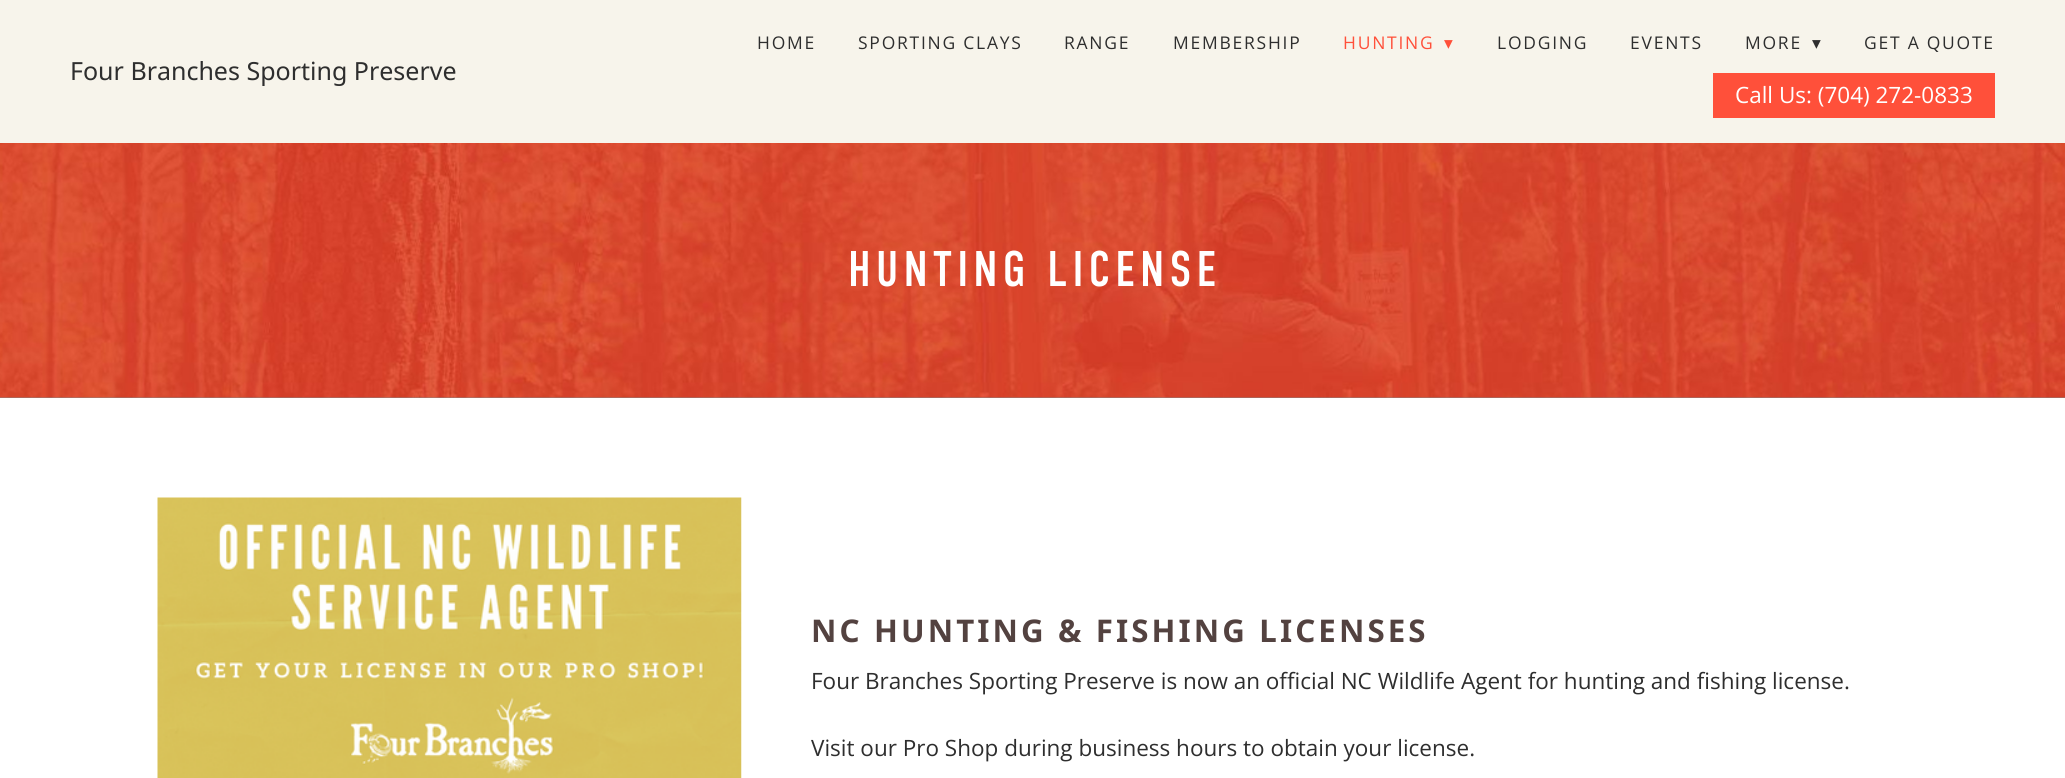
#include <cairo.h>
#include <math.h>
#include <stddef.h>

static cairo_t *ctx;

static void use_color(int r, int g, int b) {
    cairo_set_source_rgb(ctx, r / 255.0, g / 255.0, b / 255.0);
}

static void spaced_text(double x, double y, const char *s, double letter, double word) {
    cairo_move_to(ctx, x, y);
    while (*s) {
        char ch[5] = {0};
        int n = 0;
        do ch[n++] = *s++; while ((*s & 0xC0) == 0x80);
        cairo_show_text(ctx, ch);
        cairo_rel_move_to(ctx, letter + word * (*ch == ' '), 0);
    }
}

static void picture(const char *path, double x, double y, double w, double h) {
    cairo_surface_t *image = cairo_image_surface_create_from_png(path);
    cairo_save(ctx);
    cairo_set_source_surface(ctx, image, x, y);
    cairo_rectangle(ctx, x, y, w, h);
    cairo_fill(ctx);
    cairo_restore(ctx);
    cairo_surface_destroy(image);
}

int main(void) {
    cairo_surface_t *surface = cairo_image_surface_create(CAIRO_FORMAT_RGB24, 2065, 778);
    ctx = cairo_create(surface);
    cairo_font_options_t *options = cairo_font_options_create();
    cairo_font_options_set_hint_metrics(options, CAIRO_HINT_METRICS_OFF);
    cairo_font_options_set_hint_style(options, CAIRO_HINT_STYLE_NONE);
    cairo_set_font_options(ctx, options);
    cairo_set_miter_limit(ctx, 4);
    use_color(255, 255, 255);
    cairo_paint(ctx);
    use_color(247, 244, 235);
    cairo_rectangle(ctx, 0, 0, 2065, 143);
    cairo_fill(ctx);
    cairo_select_font_face(ctx, "Noto Sans", CAIRO_FONT_SLANT_NORMAL, CAIRO_FONT_WEIGHT_NORMAL);
    cairo_set_font_size(ctx, 25);
    use_color(46, 46, 46);
    cairo_move_to(ctx, 70, 80);
    cairo_show_text(ctx, "Four Branches Sporting Preserve");
    cairo_select_font_face(ctx, "Open Sans", CAIRO_FONT_SLANT_NORMAL, CAIRO_FONT_WEIGHT_NORMAL);
    cairo_set_font_size(ctx, 17.5);
    spaced_text(757, 49, "HOME", 1.75, 0);
    spaced_text(858, 49, "SPORTING CLAYS", 1.75, 0);
    spaced_text(1064, 49, "RANGE", 1.75, 0);
    spaced_text(1173, 49, "MEMBERSHIP", 1.75, 0);
    use_color(255, 80, 58);
    spaced_text(1343, 49, "HUNTING", 1.75, 0);
    cairo_select_font_face(ctx, "DejaVu Sans", CAIRO_FONT_SLANT_NORMAL, CAIRO_FONT_WEIGHT_NORMAL);
    spaced_text(1444, 49, "▾", 1.75, 0);
    cairo_select_font_face(ctx, "Open Sans", CAIRO_FONT_SLANT_NORMAL, CAIRO_FONT_WEIGHT_NORMAL);
    use_color(46, 46, 46);
    spaced_text(1497, 49, "LODGING", 1.75, 0);
    spaced_text(1630, 49, "EVENTS", 1.75, 0);
    spaced_text(1745, 49, "MORE", 1.75, 0);
    cairo_select_font_face(ctx, "DejaVu Sans", CAIRO_FONT_SLANT_NORMAL, CAIRO_FONT_WEIGHT_NORMAL);
    spaced_text(1812, 49, "▾", 1.75, 0);
    cairo_select_font_face(ctx, "Open Sans", CAIRO_FONT_SLANT_NORMAL, CAIRO_FONT_WEIGHT_NORMAL);
    spaced_text(1864, 49, "GET A QUOTE", 1.75, 0);
    use_color(255, 80, 58);
    cairo_rectangle(ctx, 1713, 73, 282, 45);
    cairo_fill(ctx);
    cairo_set_font_size(ctx, 22.5);
    use_color(255, 255, 255);
    cairo_move_to(ctx, 1735, 103);
    cairo_show_text(ctx, "Call Us: (704) 272-0833");
    use_color(134, 134, 134);
    cairo_rectangle(ctx, 0, 397, 2065, 1);
    cairo_fill(ctx);
    picture("img1.png", 0, 143, 2065, 255);
    cairo_select_font_face(ctx, "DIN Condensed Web", CAIRO_FONT_SLANT_NORMAL, CAIRO_FONT_WEIGHT_NORMAL);
    cairo_set_font_size(ctx, 50);
    use_color(255, 255, 255);
    spaced_text(848, 286, "HUNTING LICENSE", 5, 0);
    picture("img2.png", 157, 497, 585, 281);
    cairo_select_font_face(ctx, "Noto Sans", CAIRO_FONT_SLANT_NORMAL, CAIRO_FONT_WEIGHT_BOLD);
    cairo_set_font_size(ctx, 31.25);
    use_color(83, 66, 64);
    spaced_text(811, 642, "NC HUNTING & FISHING LICENSES", 3.1, 0);
    cairo_select_font_face(ctx, "Open Sans", CAIRO_FONT_SLANT_NORMAL, CAIRO_FONT_WEIGHT_NORMAL);
    cairo_set_font_size(ctx, 22.5);
    use_color(46, 46, 46);
    cairo_move_to(ctx, 811, 689);
    cairo_show_text(ctx, "Four Branches Sporting Preserve is now an official NC Wildlife Agent for hunting and fishing license.");
    cairo_move_to(ctx, 811, 756);
    cairo_show_text(ctx, "Visit our Pro Shop during business hours to obtain your license.");
    cairo_surface_write_to_png(surface, "result.png");
    cairo_font_options_destroy(options);
    cairo_destroy(ctx);
    cairo_surface_destroy(surface);
    return 0;
}
